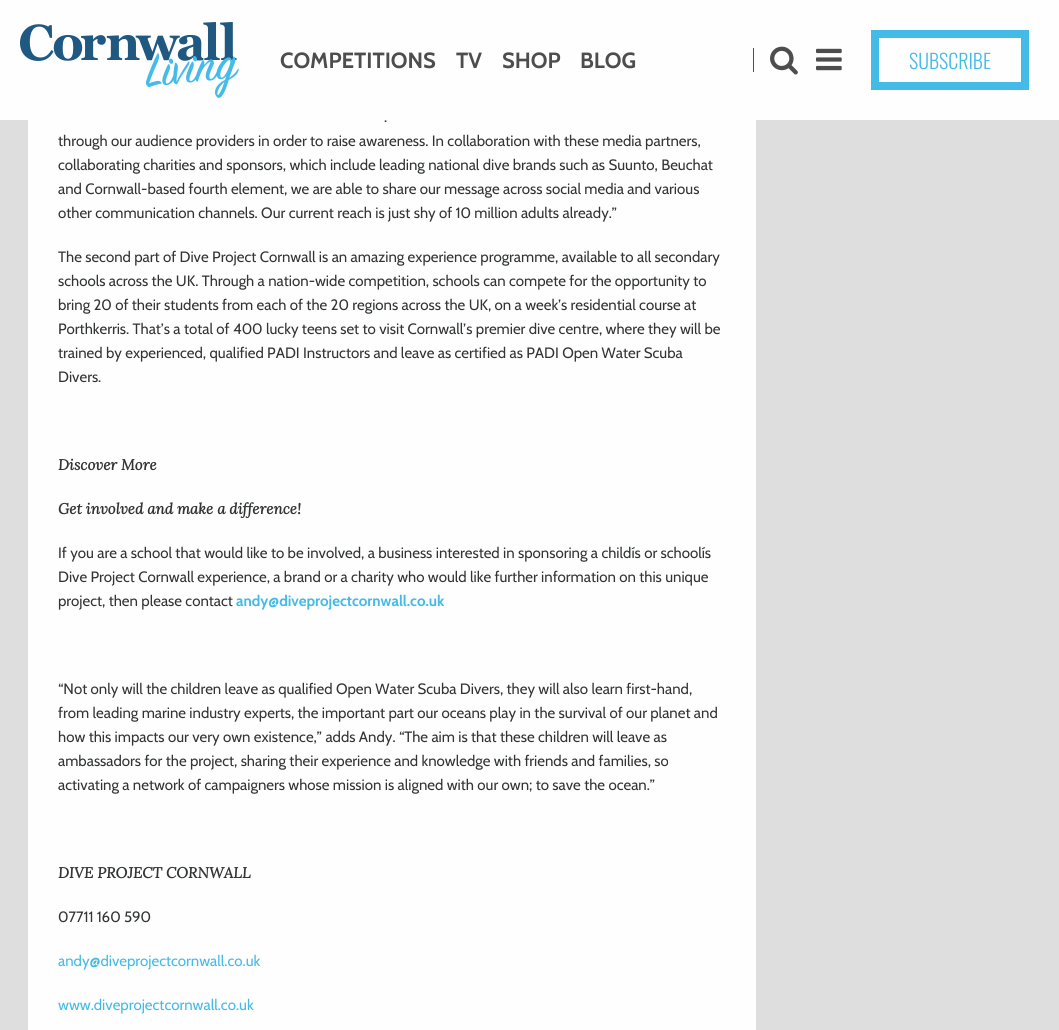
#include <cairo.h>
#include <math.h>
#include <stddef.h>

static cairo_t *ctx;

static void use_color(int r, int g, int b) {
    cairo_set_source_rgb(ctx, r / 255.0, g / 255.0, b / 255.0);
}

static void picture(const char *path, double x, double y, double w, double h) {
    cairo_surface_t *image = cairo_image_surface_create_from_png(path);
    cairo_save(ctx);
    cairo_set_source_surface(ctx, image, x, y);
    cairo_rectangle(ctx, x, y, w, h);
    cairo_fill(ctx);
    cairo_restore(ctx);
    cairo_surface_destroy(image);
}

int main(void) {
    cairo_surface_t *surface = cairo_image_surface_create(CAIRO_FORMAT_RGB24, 1059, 1030);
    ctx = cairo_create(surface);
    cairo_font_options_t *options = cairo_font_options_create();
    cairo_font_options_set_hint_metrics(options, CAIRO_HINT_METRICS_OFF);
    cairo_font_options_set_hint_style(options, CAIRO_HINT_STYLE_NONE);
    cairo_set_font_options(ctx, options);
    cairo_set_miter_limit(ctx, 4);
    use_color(222, 222, 223);
    cairo_paint(ctx);
    use_color(254, 254, 254);
    cairo_rectangle(ctx, 0, 0, 1059, 120);
    cairo_fill(ctx);
    picture("img1.png", 20, 22, 219, 76);
    cairo_select_font_face(ctx, "Cabin", CAIRO_FONT_SLANT_NORMAL, CAIRO_FONT_WEIGHT_BOLD);
    cairo_set_font_size(ctx, 22);
    use_color(77, 77, 77);
    cairo_move_to(ctx, 280, 68);
    cairo_show_text(ctx, "COMPETITIONS");
    cairo_move_to(ctx, 456, 68);
    cairo_show_text(ctx, "TV");
    cairo_move_to(ctx, 502, 68);
    cairo_show_text(ctx, "SHOP");
    cairo_move_to(ctx, 580, 68);
    cairo_show_text(ctx, "BLOG");
    use_color(47, 85, 126);
    cairo_rectangle(ctx, 753, 48, 1, 24);
    cairo_fill(ctx);
    picture("img2.png", 770, 46, 28, 29);
    picture("img3.png", 816, 48, 26, 23);
    cairo_rectangle(ctx, 875, 34, 150, 52);
    use_color(68, 186, 231);
    cairo_set_line_width(ctx, 8);
    cairo_stroke(ctx);
    cairo_select_font_face(ctx, "Oswald Light", CAIRO_FONT_SLANT_NORMAL, CAIRO_FONT_WEIGHT_NORMAL);
    cairo_set_font_size(ctx, 20);
    cairo_move_to(ctx, 909, 69);
    cairo_show_text(ctx, "SUBSCRIBE");
    use_color(254, 254, 254);
    cairo_rectangle(ctx, 28, 120, 728, 910);
    cairo_fill(ctx);
    cairo_select_font_face(ctx, "Cabin", CAIRO_FONT_SLANT_NORMAL, CAIRO_FONT_WEIGHT_NORMAL);
    cairo_set_font_size(ctx, 15);
    use_color(51, 53, 53);
    cairo_move_to(ctx, 384, 122);
    cairo_show_text(ctx, ".");
    cairo_move_to(ctx, 58, 146);
    cairo_show_text(ctx, "through our audience providers in order to raise awareness. In collaboration with these media partners,");
    cairo_move_to(ctx, 58, 170);
    cairo_show_text(ctx, "collaborating charities and sponsors, which include leading national dive brands such as Suunto, Beuchat");
    cairo_move_to(ctx, 58, 194);
    cairo_show_text(ctx, "and Cornwall-based fourth element, we are able to share our message across social media and various");
    cairo_move_to(ctx, 58, 218);
    cairo_show_text(ctx, "other communication channels. Our current reach is just shy of 10 million adults already.”");
    cairo_move_to(ctx, 58, 262);
    cairo_show_text(ctx, "The second part of Dive Project Cornwall is an amazing experience programme, available to all secondary");
    cairo_move_to(ctx, 58, 286);
    cairo_show_text(ctx, "schools across the UK. Through a nation-wide competition, schools can compete for the opportunity to");
    cairo_move_to(ctx, 58, 310);
    cairo_show_text(ctx, "bring 20 of their students from each of the 20 regions across the UK, on a week’s residential course at");
    cairo_move_to(ctx, 58, 334);
    cairo_show_text(ctx, "Porthkerris. That’s a total of 400 lucky teens set to visit Cornwall’s premier dive centre, where they will be");
    cairo_move_to(ctx, 58, 358);
    cairo_show_text(ctx, "trained by experienced, qualified PADI Instructors and leave as certified as PADI Open Water Scuba");
    cairo_move_to(ctx, 58, 382);
    cairo_show_text(ctx, "Divers.");
    cairo_select_font_face(ctx, "Lora", CAIRO_FONT_SLANT_ITALIC, CAIRO_FONT_WEIGHT_BOLD);
    cairo_move_to(ctx, 58, 470);
    cairo_show_text(ctx, "Discover More");
    cairo_move_to(ctx, 58, 514);
    cairo_show_text(ctx, "Get involved and make a difference!");
    cairo_select_font_face(ctx, "Cabin", CAIRO_FONT_SLANT_NORMAL, CAIRO_FONT_WEIGHT_NORMAL);
    cairo_move_to(ctx, 58, 558);
    cairo_show_text(ctx, "If you are a school that would like to be involved, a business interested in sponsoring a childís or schoolís");
    cairo_move_to(ctx, 58, 582);
    cairo_show_text(ctx, "Dive Project Cornwall experience, a brand or a charity who would like further information on this unique");
    cairo_move_to(ctx, 58, 606);
    cairo_show_text(ctx, "project, then please contact");
    cairo_select_font_face(ctx, "Cabin", CAIRO_FONT_SLANT_NORMAL, CAIRO_FONT_WEIGHT_BOLD);
    use_color(68, 186, 231);
    cairo_move_to(ctx, 236, 606);
    cairo_show_text(ctx, "andy@diveprojectcornwall.co.uk");
    cairo_select_font_face(ctx, "Cabin", CAIRO_FONT_SLANT_NORMAL, CAIRO_FONT_WEIGHT_NORMAL);
    use_color(51, 53, 53);
    cairo_move_to(ctx, 58, 694);
    cairo_show_text(ctx, "“Not only will the children leave as qualified Open Water Scuba Divers, they will also learn first-hand,");
    cairo_move_to(ctx, 58, 718);
    cairo_show_text(ctx, "from leading marine industry experts, the important part our oceans play in the survival of our planet and");
    cairo_move_to(ctx, 58, 742);
    cairo_show_text(ctx, "how this impacts our very own existence,” adds Andy. “The aim is that these children will leave as");
    cairo_move_to(ctx, 58, 766);
    cairo_show_text(ctx, "ambassadors for the project, sharing their experience and knowledge with friends and families, so");
    cairo_move_to(ctx, 58, 790);
    cairo_show_text(ctx, "activating a network of campaigners whose mission is aligned with our own; to save the ocean.”");
    cairo_select_font_face(ctx, "Lora", CAIRO_FONT_SLANT_ITALIC, CAIRO_FONT_WEIGHT_BOLD);
    cairo_move_to(ctx, 58, 878);
    cairo_show_text(ctx, "DIVE PROJECT CORNWALL");
    cairo_select_font_face(ctx, "Cabin", CAIRO_FONT_SLANT_NORMAL, CAIRO_FONT_WEIGHT_NORMAL);
    cairo_move_to(ctx, 58, 922);
    cairo_show_text(ctx, "07711 160 590");
    use_color(68, 186, 231);
    cairo_move_to(ctx, 58, 966);
    cairo_show_text(ctx, "andy@diveprojectcornwall.co.uk");
    cairo_move_to(ctx, 58, 1010);
    cairo_show_text(ctx, "www.diveprojectcornwall.co.uk");
    cairo_surface_write_to_png(surface, "result.png");
    cairo_font_options_destroy(options);
    cairo_destroy(ctx);
    cairo_surface_destroy(surface);
    return 0;
}
